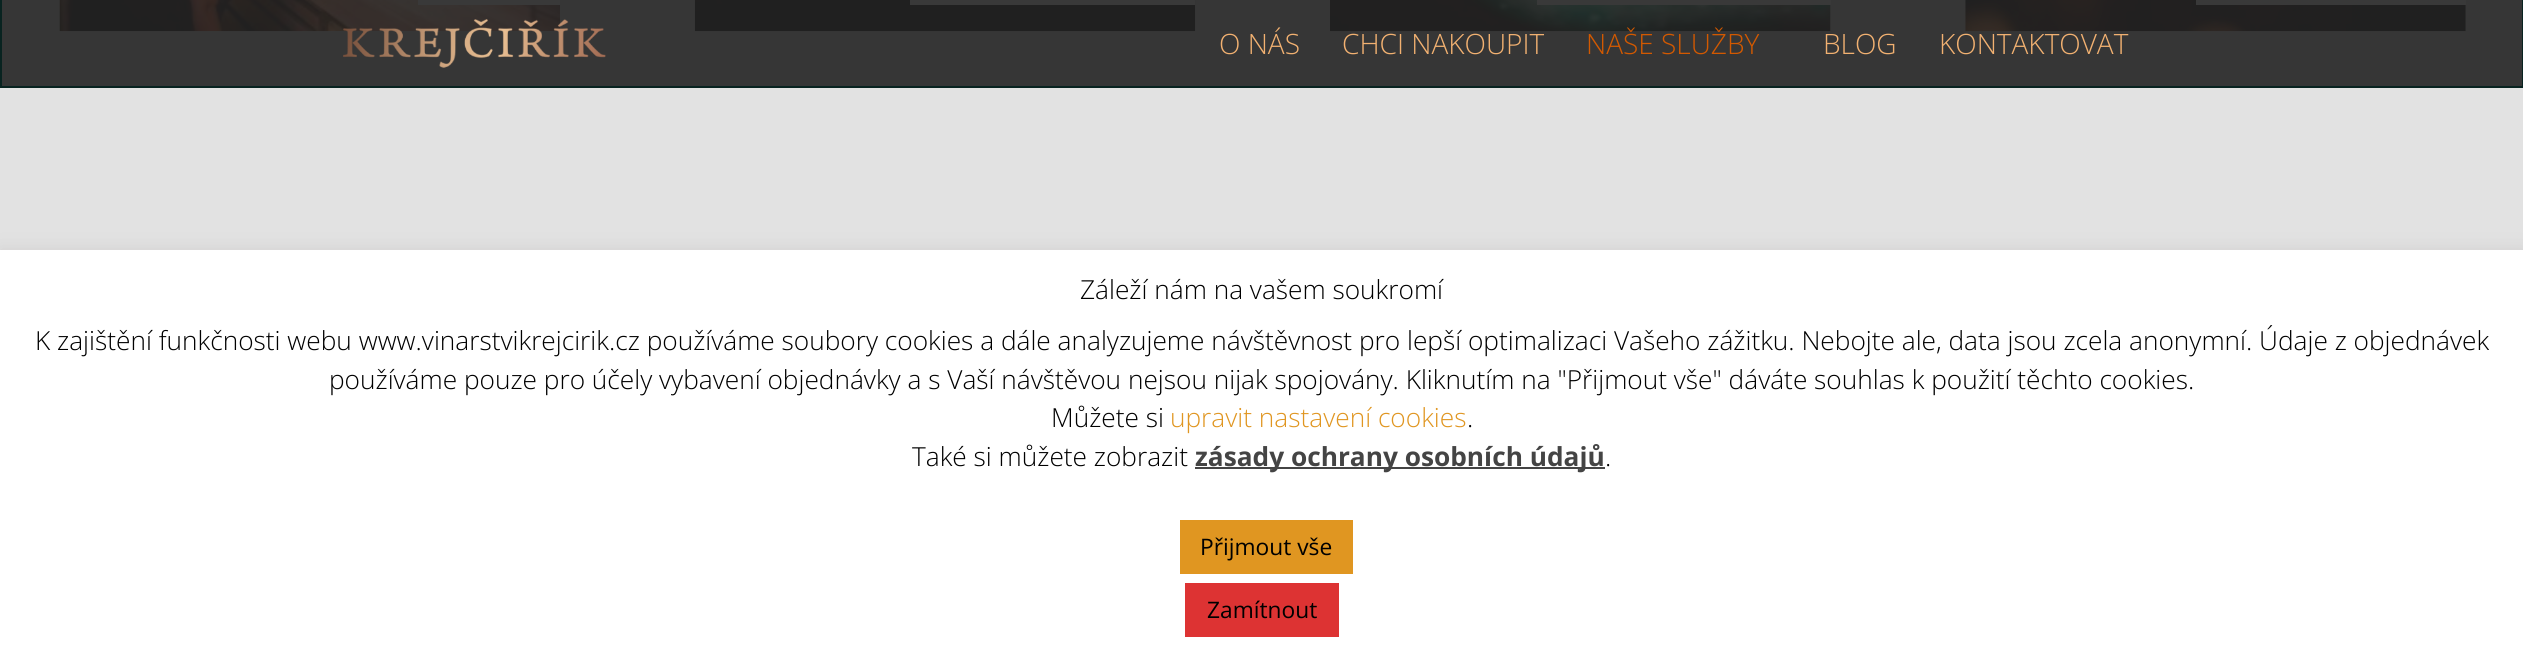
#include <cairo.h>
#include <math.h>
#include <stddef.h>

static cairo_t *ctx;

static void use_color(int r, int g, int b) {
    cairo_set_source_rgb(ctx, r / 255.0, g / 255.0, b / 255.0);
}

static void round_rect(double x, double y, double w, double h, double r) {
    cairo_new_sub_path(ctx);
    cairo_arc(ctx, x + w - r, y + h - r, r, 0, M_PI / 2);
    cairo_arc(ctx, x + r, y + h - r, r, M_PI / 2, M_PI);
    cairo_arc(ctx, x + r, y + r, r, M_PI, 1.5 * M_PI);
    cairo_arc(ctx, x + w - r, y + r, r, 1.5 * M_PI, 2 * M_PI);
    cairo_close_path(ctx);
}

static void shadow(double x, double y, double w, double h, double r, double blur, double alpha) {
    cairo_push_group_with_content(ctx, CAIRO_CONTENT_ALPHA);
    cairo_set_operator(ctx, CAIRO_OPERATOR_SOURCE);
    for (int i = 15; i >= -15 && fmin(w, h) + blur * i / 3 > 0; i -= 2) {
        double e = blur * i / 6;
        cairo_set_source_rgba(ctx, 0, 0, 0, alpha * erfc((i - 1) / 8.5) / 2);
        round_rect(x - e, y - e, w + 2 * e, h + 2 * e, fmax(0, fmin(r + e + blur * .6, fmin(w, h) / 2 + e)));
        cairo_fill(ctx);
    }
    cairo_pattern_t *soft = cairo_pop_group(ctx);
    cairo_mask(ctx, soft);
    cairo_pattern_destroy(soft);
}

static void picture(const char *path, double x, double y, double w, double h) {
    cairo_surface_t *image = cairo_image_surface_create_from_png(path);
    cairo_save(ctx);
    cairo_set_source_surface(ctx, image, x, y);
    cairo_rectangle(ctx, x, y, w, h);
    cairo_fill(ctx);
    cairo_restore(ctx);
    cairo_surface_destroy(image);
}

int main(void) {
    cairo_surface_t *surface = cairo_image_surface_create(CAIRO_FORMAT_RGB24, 2523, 666);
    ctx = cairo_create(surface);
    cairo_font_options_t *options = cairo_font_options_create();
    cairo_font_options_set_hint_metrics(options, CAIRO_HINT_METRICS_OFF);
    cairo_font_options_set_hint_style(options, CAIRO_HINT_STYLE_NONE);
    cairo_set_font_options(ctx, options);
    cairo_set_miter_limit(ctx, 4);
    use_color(226, 226, 226);
    cairo_paint(ctx);
    use_color(54, 54, 54);
    cairo_rectangle(ctx, 2, 0, 2520, 86);
    cairo_fill(ctx);
    picture("img1.png", 59, 0, 501, 32);
    use_color(57, 57, 57);
    cairo_rectangle(ctx, 418, 0, 142, 5);
    cairo_fill(ctx);
    picture("img2.png", 694, 0, 502, 32);
    cairo_rectangle(ctx, 910, 0, 285, 5);
    cairo_fill(ctx);
    picture("img3.png", 1330, 0, 501, 32);
    cairo_rectangle(ctx, 1537, 0, 294, 5);
    cairo_fill(ctx);
    picture("img4.png", 1965, 0, 501, 32);
    cairo_rectangle(ctx, 2196, 0, 270, 5);
    cairo_fill(ctx);
    use_color(8, 35, 32);
    cairo_rectangle(ctx, 2522, 0, 1, 88);
    cairo_fill(ctx);
    cairo_rectangle(ctx, 0, 86, 2523, 2);
    cairo_fill(ctx);
    cairo_rectangle(ctx, 0, 0, 2, 88);
    cairo_fill(ctx);
    picture("img5.png", 343, 19, 263, 49);
    cairo_select_font_face(ctx, "Open Sans Light", CAIRO_FONT_SLANT_NORMAL, CAIRO_FONT_WEIGHT_NORMAL);
    cairo_set_font_size(ctx, 28);
    use_color(242, 177, 113);
    cairo_move_to(ctx, 1219, 54);
    cairo_show_text(ctx, "O NÁS");
    cairo_move_to(ctx, 1342, 54);
    cairo_show_text(ctx, "CHCI NAKOUPIT");
    use_color(211, 89, 0);
    cairo_move_to(ctx, 1586, 54);
    cairo_show_text(ctx, "NAŠE SLUŽBY");
    use_color(242, 177, 113);
    cairo_move_to(ctx, 1823, 54);
    cairo_show_text(ctx, "BLOG");
    cairo_move_to(ctx, 1939, 54);
    cairo_show_text(ctx, "KONTAKTOVAT");
    use_color(172, 171, 171);
    shadow(0, 249, 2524, 416, 0, 9, 0.3);
    use_color(255, 255, 255);
    cairo_rectangle(ctx, 0, 250, 2523, 416);
    cairo_fill(ctx);
    cairo_set_font_size(ctx, 26.25);
    use_color(0, 0, 0);
    cairo_move_to(ctx, 1080, 299);
    cairo_show_text(ctx, "Záleží nám na vašem soukromí");
    cairo_move_to(ctx, 35, 350);
    cairo_show_text(ctx, "K zajištění funkčnosti webu www.vinarstvikrejcirik.cz používáme soubory cookies a dále analyzujeme návštěvnost pro lepší optimalizaci Vašeho zážitku. Nebojte ale, data jsou zcela anonymní. Údaje z objednávek");
    cairo_move_to(ctx, 329, 389);
    cairo_show_text(ctx, "používáme pouze pro účely vybavení objednávky a s Vaší návštěvou nejsou nijak spojovány. Kliknutím na \"Přijmout vše\" dáváte souhlas k použití těchto cookies.");
    cairo_move_to(ctx, 1051, 427);
    cairo_show_text(ctx, "Můžete si");
    use_color(224, 150, 33);
    cairo_move_to(ctx, 1170, 427);
    cairo_show_text(ctx, "upravit nastavení cookies");
    use_color(0, 0, 0);
    cairo_move_to(ctx, 1467, 427);
    cairo_show_text(ctx, ".");
    cairo_move_to(ctx, 912, 466);
    cairo_show_text(ctx, "Také si můžete zobrazit");
    use_color(68, 68, 68);
    cairo_rectangle(ctx, 1195, 467, 410, 2);
    cairo_fill(ctx);
    cairo_select_font_face(ctx, "Open Sans", CAIRO_FONT_SLANT_NORMAL, CAIRO_FONT_WEIGHT_BOLD);
    cairo_move_to(ctx, 1195, 466);
    cairo_show_text(ctx, "zásady ochrany osobních údajů");
    cairo_select_font_face(ctx, "Open Sans Light", CAIRO_FONT_SLANT_NORMAL, CAIRO_FONT_WEIGHT_NORMAL);
    use_color(0, 0, 0);
    cairo_move_to(ctx, 1605, 466);
    cairo_show_text(ctx, ".");
    use_color(224, 150, 33);
    cairo_rectangle(ctx, 1180, 520, 173, 54);
    cairo_fill(ctx);
    cairo_select_font_face(ctx, "Open Sans", CAIRO_FONT_SLANT_NORMAL, CAIRO_FONT_WEIGHT_NORMAL);
    cairo_set_font_size(ctx, 22.75);
    use_color(0, 0, 0);
    cairo_move_to(ctx, 1200, 555);
    cairo_show_text(ctx, "Přijmout vše");
    use_color(221, 51, 51);
    cairo_rectangle(ctx, 1185, 583, 154, 54);
    cairo_fill(ctx);
    use_color(0, 0, 0);
    cairo_move_to(ctx, 1207, 618);
    cairo_show_text(ctx, "Zamítnout");
    cairo_surface_write_to_png(surface, "result.png");
    cairo_font_options_destroy(options);
    cairo_destroy(ctx);
    cairo_surface_destroy(surface);
    return 0;
}
